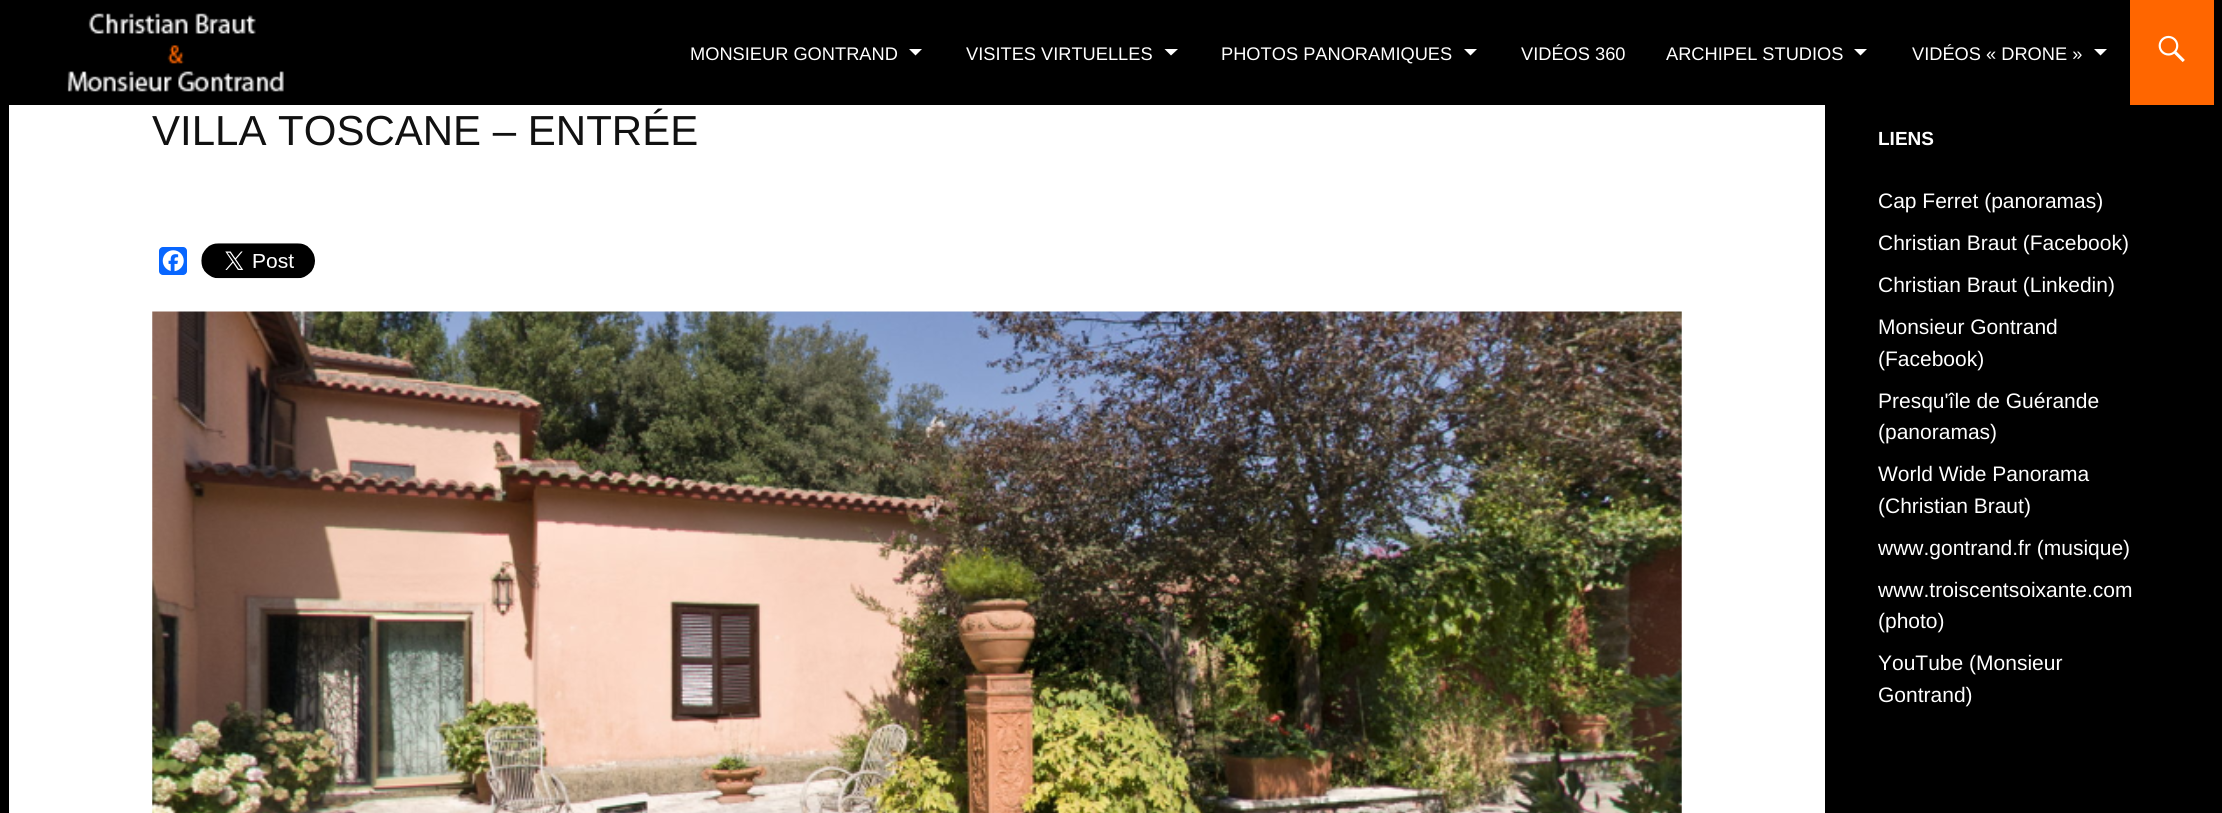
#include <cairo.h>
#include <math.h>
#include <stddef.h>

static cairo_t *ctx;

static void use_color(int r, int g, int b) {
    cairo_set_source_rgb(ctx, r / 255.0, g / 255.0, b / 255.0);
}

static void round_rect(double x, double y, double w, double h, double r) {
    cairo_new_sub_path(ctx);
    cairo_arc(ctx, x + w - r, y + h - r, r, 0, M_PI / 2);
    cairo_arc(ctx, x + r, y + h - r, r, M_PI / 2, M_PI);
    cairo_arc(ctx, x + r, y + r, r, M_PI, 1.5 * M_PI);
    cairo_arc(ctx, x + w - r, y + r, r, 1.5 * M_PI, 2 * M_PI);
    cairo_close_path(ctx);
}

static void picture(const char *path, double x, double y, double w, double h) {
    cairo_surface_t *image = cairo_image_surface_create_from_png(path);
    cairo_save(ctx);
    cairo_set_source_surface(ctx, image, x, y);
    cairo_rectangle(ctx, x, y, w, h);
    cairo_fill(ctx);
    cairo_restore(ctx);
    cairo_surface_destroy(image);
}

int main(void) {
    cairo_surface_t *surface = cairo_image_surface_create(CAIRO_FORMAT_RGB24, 2222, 813);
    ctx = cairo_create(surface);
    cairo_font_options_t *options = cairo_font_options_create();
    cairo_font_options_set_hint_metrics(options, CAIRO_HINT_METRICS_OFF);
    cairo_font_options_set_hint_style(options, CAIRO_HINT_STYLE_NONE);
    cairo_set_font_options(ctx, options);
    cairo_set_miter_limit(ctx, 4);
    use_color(0, 0, 0);
    cairo_paint(ctx);
    use_color(255, 255, 255);
    cairo_rectangle(ctx, 9, 105, 1816, 708);
    cairo_fill(ctx);
    picture("img1.png", 67, 13, 217, 79);
    cairo_select_font_face(ctx, "Liberation Sans", CAIRO_FONT_SLANT_NORMAL, CAIRO_FONT_WEIGHT_NORMAL);
    cairo_set_font_size(ctx, 18.25);
    cairo_move_to(ctx, 690, 60);
    cairo_show_text(ctx, "MONSIEUR GONTRAND");
    cairo_new_path(ctx);
    cairo_move_to(ctx, 909, 49);
    cairo_line_to(ctx, 915.5, 55.5);
    cairo_line_to(ctx, 922, 49);
    cairo_close_path(ctx);
    cairo_fill(ctx);
    cairo_move_to(ctx, 966, 60);
    cairo_show_text(ctx, "VISITES VIRTUELLES");
    cairo_new_path(ctx);
    cairo_move_to(ctx, 1164.5, 49);
    cairo_line_to(ctx, 1171, 55.5);
    cairo_line_to(ctx, 1178, 49);
    cairo_close_path(ctx);
    cairo_fill(ctx);
    cairo_move_to(ctx, 1221, 60);
    cairo_show_text(ctx, "PHOTOS PANORAMIQUES");
    cairo_new_path(ctx);
    cairo_move_to(ctx, 1464, 49);
    cairo_line_to(ctx, 1470.5, 55.5);
    cairo_line_to(ctx, 1477, 49);
    cairo_close_path(ctx);
    cairo_fill(ctx);
    cairo_move_to(ctx, 1521, 60);
    cairo_show_text(ctx, "VIDÉOS 360");
    cairo_move_to(ctx, 1666, 60);
    cairo_show_text(ctx, "ARCHIPEL STUDIOS");
    cairo_new_path(ctx);
    cairo_move_to(ctx, 1854, 49);
    cairo_line_to(ctx, 1860.5, 55.5);
    cairo_line_to(ctx, 1867, 49);
    cairo_close_path(ctx);
    cairo_fill(ctx);
    cairo_move_to(ctx, 1912, 60);
    cairo_show_text(ctx, "VIDÉOS « DRONE »");
    cairo_new_path(ctx);
    cairo_move_to(ctx, 2094, 49);
    cairo_line_to(ctx, 2100.5, 55.5);
    cairo_line_to(ctx, 2107, 49);
    cairo_close_path(ctx);
    cairo_fill(ctx);
    use_color(255, 102, 0);
    cairo_rectangle(ctx, 2130, 0, 84, 105);
    cairo_fill(ctx);
    picture("img2.png", 2158, 35, 27, 27);
    cairo_set_font_size(ctx, 42);
    use_color(17, 17, 17);
    cairo_move_to(ctx, 152, 145);
    cairo_show_text(ctx, "VILLA TOSCANE – ENTRÉE");
    use_color(8, 102, 255);
    round_rect(159, 247, 28, 28, 4);
    cairo_fill(ctx);
    picture("img3.png", 162, 250, 22, 22);
    picture("img4.png", 201, 243, 114, 36);
    picture("img5.png", 152, 311, 1530, 502);
    cairo_select_font_face(ctx, "Liberation Sans", CAIRO_FONT_SLANT_NORMAL, CAIRO_FONT_WEIGHT_BOLD);
    cairo_set_font_size(ctx, 19);
    use_color(255, 255, 255);
    cairo_move_to(ctx, 1878, 145);
    cairo_show_text(ctx, "LIENS");
    cairo_select_font_face(ctx, "Liberation Sans", CAIRO_FONT_SLANT_NORMAL, CAIRO_FONT_WEIGHT_NORMAL);
    cairo_set_font_size(ctx, 21);
    cairo_move_to(ctx, 1878, 208);
    cairo_show_text(ctx, "Cap Ferret (panoramas)");
    cairo_move_to(ctx, 1878, 250);
    cairo_show_text(ctx, "Christian Braut (Facebook)");
    cairo_move_to(ctx, 1878, 292);
    cairo_show_text(ctx, "Christian Braut (Linkedin)");
    cairo_move_to(ctx, 1878, 334);
    cairo_show_text(ctx, "Monsieur Gontrand");
    cairo_move_to(ctx, 1878, 366);
    cairo_show_text(ctx, "(Facebook)");
    cairo_move_to(ctx, 1878, 408);
    cairo_show_text(ctx, "Presqu'île de Guérande");
    cairo_move_to(ctx, 1878, 439);
    cairo_show_text(ctx, "(panoramas)");
    cairo_move_to(ctx, 1878, 481);
    cairo_show_text(ctx, "World Wide Panorama");
    cairo_move_to(ctx, 1878, 513);
    cairo_show_text(ctx, "(Christian Braut)");
    cairo_move_to(ctx, 1878, 555);
    cairo_show_text(ctx, "www.gontrand.fr (musique)");
    cairo_move_to(ctx, 1878, 597);
    cairo_show_text(ctx, "www.troiscentsoixante.com");
    cairo_move_to(ctx, 1878, 628);
    cairo_show_text(ctx, "(photo)");
    cairo_move_to(ctx, 1878, 670);
    cairo_show_text(ctx, "YouTube (Monsieur");
    cairo_move_to(ctx, 1878, 702);
    cairo_show_text(ctx, "Gontrand)");
    cairo_surface_write_to_png(surface, "result.png");
    cairo_font_options_destroy(options);
    cairo_destroy(ctx);
    cairo_surface_destroy(surface);
    return 0;
}
